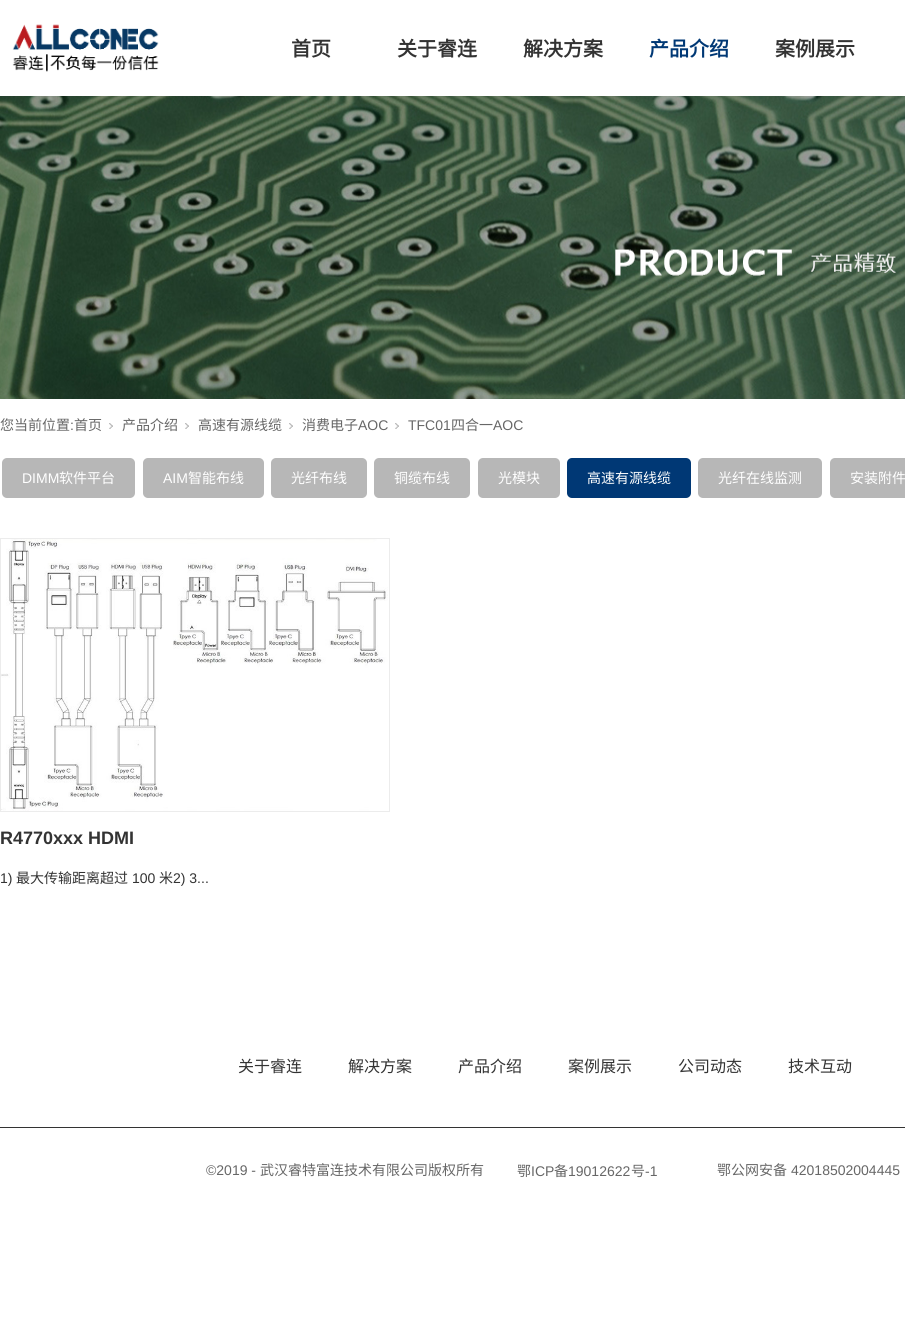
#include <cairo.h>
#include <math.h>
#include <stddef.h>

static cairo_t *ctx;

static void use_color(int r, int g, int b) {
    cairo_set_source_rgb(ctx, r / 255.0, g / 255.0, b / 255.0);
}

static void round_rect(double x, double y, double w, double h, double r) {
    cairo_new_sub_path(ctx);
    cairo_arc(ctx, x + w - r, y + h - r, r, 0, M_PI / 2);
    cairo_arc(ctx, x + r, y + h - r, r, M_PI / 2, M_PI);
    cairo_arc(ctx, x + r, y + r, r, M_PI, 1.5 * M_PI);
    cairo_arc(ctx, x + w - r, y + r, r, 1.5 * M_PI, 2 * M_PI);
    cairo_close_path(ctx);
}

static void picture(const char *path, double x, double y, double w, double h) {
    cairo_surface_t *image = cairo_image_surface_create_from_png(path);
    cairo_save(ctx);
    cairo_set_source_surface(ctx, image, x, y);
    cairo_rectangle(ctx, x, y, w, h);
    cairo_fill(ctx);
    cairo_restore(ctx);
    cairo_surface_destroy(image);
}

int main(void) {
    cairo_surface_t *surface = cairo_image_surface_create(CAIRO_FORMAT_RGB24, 905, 1332);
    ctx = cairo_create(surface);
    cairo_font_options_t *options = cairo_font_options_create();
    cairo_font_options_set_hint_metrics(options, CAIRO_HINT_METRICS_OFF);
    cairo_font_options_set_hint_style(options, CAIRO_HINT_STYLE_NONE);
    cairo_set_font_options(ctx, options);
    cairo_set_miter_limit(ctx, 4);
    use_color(255, 255, 255);
    cairo_paint(ctx);
    picture("img1.png", 12, 24, 147, 48);
    cairo_select_font_face(ctx, "Noto Sans CJK SC", CAIRO_FONT_SLANT_NORMAL, CAIRO_FONT_WEIGHT_BOLD);
    cairo_set_font_size(ctx, 20);
    use_color(51, 51, 51);
    cairo_move_to(ctx, 291, 56);
    cairo_show_text(ctx, "首页");
    cairo_move_to(ctx, 397, 56);
    cairo_show_text(ctx, "关于睿连");
    cairo_move_to(ctx, 523, 56);
    cairo_show_text(ctx, "解决方案");
    use_color(0, 56, 117);
    cairo_move_to(ctx, 649, 56);
    cairo_show_text(ctx, "产品介绍");
    use_color(51, 51, 51);
    cairo_move_to(ctx, 775, 56);
    cairo_show_text(ctx, "案例展示");
    picture("img2.png", 0, 96, 905, 303);
    cairo_select_font_face(ctx, "Noto Sans CJK SC", CAIRO_FONT_SLANT_NORMAL, CAIRO_FONT_WEIGHT_NORMAL);
    cairo_set_font_size(ctx, 14);
    use_color(103, 103, 103);
    cairo_move_to(ctx, 0, 430);
    cairo_show_text(ctx, "您当前位置");
    cairo_select_font_face(ctx, "Liberation Sans", CAIRO_FONT_SLANT_NORMAL, CAIRO_FONT_WEIGHT_NORMAL);
    cairo_move_to(ctx, 70, 430);
    cairo_show_text(ctx, ":");
    cairo_select_font_face(ctx, "Noto Sans CJK SC", CAIRO_FONT_SLANT_NORMAL, CAIRO_FONT_WEIGHT_NORMAL);
    cairo_move_to(ctx, 74, 430);
    cairo_show_text(ctx, "首页");
    picture("img3.png", 109, 423, 4, 6);
    cairo_move_to(ctx, 122, 430);
    cairo_show_text(ctx, "产品介绍");
    picture("img3.png", 185, 423, 4, 6);
    cairo_move_to(ctx, 198, 430);
    cairo_show_text(ctx, "高速有源线缆");
    picture("img3.png", 289, 423, 4, 6);
    cairo_move_to(ctx, 302, 430);
    cairo_show_text(ctx, "消费电子");
    cairo_select_font_face(ctx, "Liberation Sans", CAIRO_FONT_SLANT_NORMAL, CAIRO_FONT_WEIGHT_NORMAL);
    cairo_move_to(ctx, 358, 430);
    cairo_show_text(ctx, "AOC");
    picture("img3.png", 395, 423, 4, 6);
    cairo_move_to(ctx, 408, 430);
    cairo_show_text(ctx, "TFC01");
    cairo_select_font_face(ctx, "Noto Sans CJK SC", CAIRO_FONT_SLANT_NORMAL, CAIRO_FONT_WEIGHT_NORMAL);
    cairo_move_to(ctx, 451, 430);
    cairo_show_text(ctx, "四合一");
    cairo_select_font_face(ctx, "Liberation Sans", CAIRO_FONT_SLANT_NORMAL, CAIRO_FONT_WEIGHT_NORMAL);
    cairo_move_to(ctx, 493, 430);
    cairo_show_text(ctx, "AOC");
    use_color(183, 183, 183);
    round_rect(2, 458, 133, 40, 5);
    cairo_fill(ctx);
    use_color(255, 255, 255);
    cairo_move_to(ctx, 22, 483);
    cairo_show_text(ctx, "DIMM");
    cairo_select_font_face(ctx, "Noto Sans CJK SC", CAIRO_FONT_SLANT_NORMAL, CAIRO_FONT_WEIGHT_NORMAL);
    cairo_move_to(ctx, 59, 483);
    cairo_show_text(ctx, "软件平台");
    use_color(183, 183, 183);
    round_rect(143, 458, 121, 40, 5);
    cairo_fill(ctx);
    cairo_select_font_face(ctx, "Liberation Sans", CAIRO_FONT_SLANT_NORMAL, CAIRO_FONT_WEIGHT_NORMAL);
    use_color(255, 255, 255);
    cairo_move_to(ctx, 163, 483);
    cairo_show_text(ctx, "AIM");
    cairo_select_font_face(ctx, "Noto Sans CJK SC", CAIRO_FONT_SLANT_NORMAL, CAIRO_FONT_WEIGHT_NORMAL);
    cairo_move_to(ctx, 188, 483);
    cairo_show_text(ctx, "智能布线");
    use_color(183, 183, 183);
    round_rect(271, 458, 96, 40, 5);
    cairo_fill(ctx);
    use_color(255, 255, 255);
    cairo_move_to(ctx, 291, 483);
    cairo_show_text(ctx, "光纤布线");
    use_color(183, 183, 183);
    round_rect(374, 458, 96, 40, 5);
    cairo_fill(ctx);
    use_color(255, 255, 255);
    cairo_move_to(ctx, 394, 483);
    cairo_show_text(ctx, "铜缆布线");
    use_color(183, 183, 183);
    round_rect(478, 458, 82, 40, 5);
    cairo_fill(ctx);
    use_color(255, 255, 255);
    cairo_move_to(ctx, 498, 483);
    cairo_show_text(ctx, "光模块");
    use_color(0, 56, 117);
    round_rect(567, 458, 124, 40, 5);
    cairo_fill(ctx);
    use_color(255, 255, 255);
    cairo_move_to(ctx, 587, 483);
    cairo_show_text(ctx, "高速有源线缆");
    use_color(183, 183, 183);
    round_rect(698, 458, 124, 40, 5);
    cairo_fill(ctx);
    use_color(255, 255, 255);
    cairo_move_to(ctx, 718, 483);
    cairo_show_text(ctx, "光纤在线监测");
    use_color(183, 183, 183);
    round_rect(830, 458, 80, 40, 5);
    cairo_fill(ctx);
    use_color(255, 255, 255);
    cairo_move_to(ctx, 850, 483);
    cairo_show_text(ctx, "安装附件");
    cairo_rectangle(ctx, 0.5, 538.5, 389, 273);
    use_color(236, 236, 236);
    cairo_set_line_width(ctx, 1);
    cairo_stroke(ctx);
    picture("img4.png", 1, 539, 387, 272);
    cairo_select_font_face(ctx, "Liberation Sans", CAIRO_FONT_SLANT_NORMAL, CAIRO_FONT_WEIGHT_BOLD);
    cairo_set_font_size(ctx, 18);
    use_color(51, 51, 51);
    cairo_move_to(ctx, 0, 844);
    cairo_show_text(ctx, "R4770xxx HDMI");
    cairo_select_font_face(ctx, "Liberation Sans", CAIRO_FONT_SLANT_NORMAL, CAIRO_FONT_WEIGHT_NORMAL);
    cairo_set_font_size(ctx, 14);
    cairo_move_to(ctx, 0, 883);
    cairo_show_text(ctx, "1)");
    cairo_select_font_face(ctx, "Noto Sans CJK SC", CAIRO_FONT_SLANT_NORMAL, CAIRO_FONT_WEIGHT_NORMAL);
    cairo_move_to(ctx, 16, 883);
    cairo_show_text(ctx, "最大传输距离超过");
    cairo_select_font_face(ctx, "Liberation Sans", CAIRO_FONT_SLANT_NORMAL, CAIRO_FONT_WEIGHT_NORMAL);
    cairo_move_to(ctx, 132, 883);
    cairo_show_text(ctx, "100");
    cairo_select_font_face(ctx, "Noto Sans CJK SC", CAIRO_FONT_SLANT_NORMAL, CAIRO_FONT_WEIGHT_NORMAL);
    cairo_move_to(ctx, 159, 883);
    cairo_show_text(ctx, "米");
    cairo_select_font_face(ctx, "Liberation Sans", CAIRO_FONT_SLANT_NORMAL, CAIRO_FONT_WEIGHT_NORMAL);
    cairo_move_to(ctx, 173, 883);
    cairo_show_text(ctx, "2) 3...");
    cairo_select_font_face(ctx, "Noto Sans CJK SC", CAIRO_FONT_SLANT_NORMAL, CAIRO_FONT_WEIGHT_NORMAL);
    cairo_set_font_size(ctx, 16);
    cairo_move_to(ctx, 238, 1072);
    cairo_show_text(ctx, "关于睿连");
    cairo_move_to(ctx, 348, 1072);
    cairo_show_text(ctx, "解决方案");
    cairo_move_to(ctx, 458, 1072);
    cairo_show_text(ctx, "产品介绍");
    cairo_move_to(ctx, 568, 1072);
    cairo_show_text(ctx, "案例展示");
    cairo_move_to(ctx, 678, 1072);
    cairo_show_text(ctx, "公司动态");
    cairo_move_to(ctx, 788, 1072);
    cairo_show_text(ctx, "技术互动");
    cairo_rectangle(ctx, 0, 1127, 905, 1);
    cairo_fill(ctx);
    cairo_select_font_face(ctx, "Liberation Sans", CAIRO_FONT_SLANT_NORMAL, CAIRO_FONT_WEIGHT_NORMAL);
    cairo_set_font_size(ctx, 14);
    use_color(103, 103, 103);
    cairo_move_to(ctx, 206, 1175);
    cairo_show_text(ctx, "©2019 -");
    cairo_select_font_face(ctx, "Noto Sans CJK SC", CAIRO_FONT_SLANT_NORMAL, CAIRO_FONT_WEIGHT_NORMAL);
    cairo_move_to(ctx, 260, 1175);
    cairo_show_text(ctx, "武汉睿特富连技术有限公司版权所有");
    cairo_move_to(ctx, 517, 1176);
    cairo_show_text(ctx, "鄂");
    cairo_select_font_face(ctx, "Liberation Sans", CAIRO_FONT_SLANT_NORMAL, CAIRO_FONT_WEIGHT_NORMAL);
    cairo_move_to(ctx, 531, 1176);
    cairo_show_text(ctx, "ICP");
    cairo_select_font_face(ctx, "Noto Sans CJK SC", CAIRO_FONT_SLANT_NORMAL, CAIRO_FONT_WEIGHT_NORMAL);
    cairo_move_to(ctx, 554, 1176);
    cairo_show_text(ctx, "备");
    cairo_select_font_face(ctx, "Liberation Sans", CAIRO_FONT_SLANT_NORMAL, CAIRO_FONT_WEIGHT_NORMAL);
    cairo_move_to(ctx, 568, 1176);
    cairo_show_text(ctx, "19012622");
    cairo_select_font_face(ctx, "Noto Sans CJK SC", CAIRO_FONT_SLANT_NORMAL, CAIRO_FONT_WEIGHT_NORMAL);
    cairo_move_to(ctx, 631, 1176);
    cairo_show_text(ctx, "号");
    cairo_select_font_face(ctx, "Liberation Sans", CAIRO_FONT_SLANT_NORMAL, CAIRO_FONT_WEIGHT_NORMAL);
    cairo_move_to(ctx, 645, 1176);
    cairo_show_text(ctx, "-1");
    cairo_select_font_face(ctx, "Noto Sans CJK SC", CAIRO_FONT_SLANT_NORMAL, CAIRO_FONT_WEIGHT_NORMAL);
    cairo_move_to(ctx, 717, 1175);
    cairo_show_text(ctx, "鄂公网安备");
    cairo_select_font_face(ctx, "Liberation Sans", CAIRO_FONT_SLANT_NORMAL, CAIRO_FONT_WEIGHT_NORMAL);
    cairo_move_to(ctx, 791, 1175);
    cairo_show_text(ctx, "42018502004445");
    cairo_surface_write_to_png(surface, "result.png");
    cairo_font_options_destroy(options);
    cairo_destroy(ctx);
    cairo_surface_destroy(surface);
    return 0;
}
